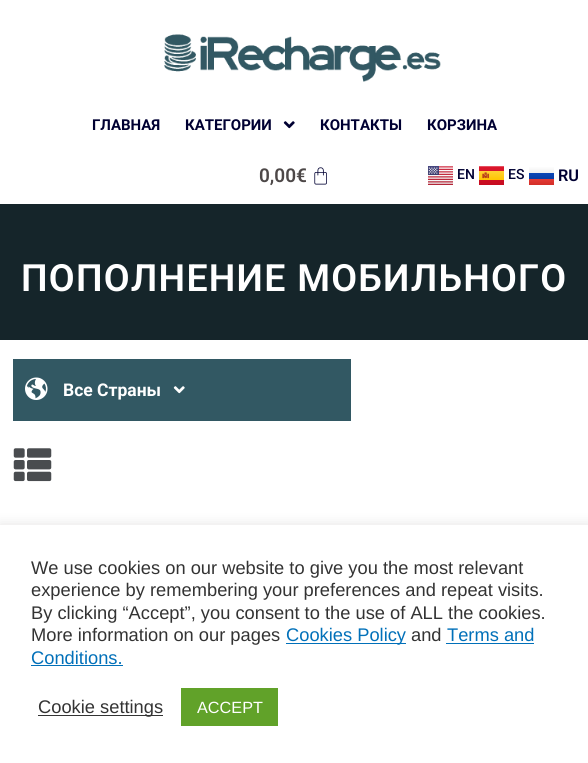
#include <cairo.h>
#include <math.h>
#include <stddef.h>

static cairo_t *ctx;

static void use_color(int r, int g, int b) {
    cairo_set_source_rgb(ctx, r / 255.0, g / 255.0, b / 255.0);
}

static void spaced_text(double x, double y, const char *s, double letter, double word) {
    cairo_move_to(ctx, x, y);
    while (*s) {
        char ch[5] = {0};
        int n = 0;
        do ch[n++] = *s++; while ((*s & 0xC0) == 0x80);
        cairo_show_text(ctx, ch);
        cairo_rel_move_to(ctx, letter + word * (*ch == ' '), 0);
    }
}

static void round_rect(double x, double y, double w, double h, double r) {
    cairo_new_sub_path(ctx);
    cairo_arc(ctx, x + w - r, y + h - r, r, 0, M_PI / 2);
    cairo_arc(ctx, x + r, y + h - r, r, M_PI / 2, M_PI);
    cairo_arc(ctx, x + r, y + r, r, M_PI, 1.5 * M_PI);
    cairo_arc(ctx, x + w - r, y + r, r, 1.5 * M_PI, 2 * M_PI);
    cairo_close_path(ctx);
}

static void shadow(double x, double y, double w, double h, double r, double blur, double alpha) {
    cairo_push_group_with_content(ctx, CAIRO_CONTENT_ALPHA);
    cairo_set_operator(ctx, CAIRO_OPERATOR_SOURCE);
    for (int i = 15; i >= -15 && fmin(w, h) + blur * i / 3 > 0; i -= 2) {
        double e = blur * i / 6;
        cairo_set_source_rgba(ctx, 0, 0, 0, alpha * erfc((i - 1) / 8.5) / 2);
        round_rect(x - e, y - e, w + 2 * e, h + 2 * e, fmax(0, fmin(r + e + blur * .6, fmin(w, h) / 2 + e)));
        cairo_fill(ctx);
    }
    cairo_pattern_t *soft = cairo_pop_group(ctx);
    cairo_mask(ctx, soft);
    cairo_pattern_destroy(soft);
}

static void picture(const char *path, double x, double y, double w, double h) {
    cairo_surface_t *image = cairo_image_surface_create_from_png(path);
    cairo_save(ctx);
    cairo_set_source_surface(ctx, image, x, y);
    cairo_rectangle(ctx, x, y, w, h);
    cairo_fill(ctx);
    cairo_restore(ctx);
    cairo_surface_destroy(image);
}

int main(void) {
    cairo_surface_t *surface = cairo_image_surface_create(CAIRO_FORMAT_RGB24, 588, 763);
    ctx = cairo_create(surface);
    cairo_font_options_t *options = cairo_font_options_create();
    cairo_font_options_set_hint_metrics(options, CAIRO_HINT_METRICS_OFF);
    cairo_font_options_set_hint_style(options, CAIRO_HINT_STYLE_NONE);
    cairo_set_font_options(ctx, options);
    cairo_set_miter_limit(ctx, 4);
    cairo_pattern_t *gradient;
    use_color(255, 255, 255);
    cairo_paint(ctx);
    picture("img1.png", 164, 34, 277, 48);
    cairo_select_font_face(ctx, "Roboto", CAIRO_FONT_SLANT_NORMAL, CAIRO_FONT_WEIGHT_BOLD);
    cairo_set_font_size(ctx, 15);
    use_color(0, 0, 50);
    cairo_move_to(ctx, 92, 130);
    cairo_show_text(ctx, "ГЛАВНАЯ");
    cairo_move_to(ctx, 185, 130);
    cairo_show_text(ctx, "КАТЕГОРИИ");
    picture("img2.png", 283, 121, 12, 8);
    cairo_move_to(ctx, 320, 130);
    cairo_show_text(ctx, "КОНТАКТЫ");
    cairo_move_to(ctx, 427, 130);
    cairo_show_text(ctx, "КОРЗИНА");
    cairo_select_font_face(ctx, "Roboto SemiBold", CAIRO_FONT_SLANT_NORMAL, CAIRO_FONT_WEIGHT_NORMAL);
    cairo_set_font_size(ctx, 19);
    use_color(77, 72, 72);
    cairo_move_to(ctx, 259, 182);
    cairo_show_text(ctx, "0,00€");
    picture("img3.png", 314, 167, 13, 18);
    picture("img4.png", 428, 166, 25, 19);
    cairo_select_font_face(ctx, "Roboto Medium", CAIRO_FONT_SLANT_NORMAL, CAIRO_FONT_WEIGHT_NORMAL);
    cairo_set_font_size(ctx, 14);
    use_color(0, 0, 50);
    cairo_move_to(ctx, 457, 179);
    cairo_show_text(ctx, "EN");
    picture("img5.png", 479, 166, 25, 19);
    cairo_move_to(ctx, 508, 179);
    cairo_show_text(ctx, "ES");
    gradient = cairo_pattern_create_linear(542, 166, 542, 173);
    cairo_pattern_add_color_stop_rgba(gradient, 0, 1, 1, 1, 1);
    cairo_pattern_add_color_stop_rgba(gradient, 1, 0.941, 0.941, 0.941, 1);
    cairo_set_source(ctx, gradient);
    cairo_pattern_destroy(gradient);
    cairo_rectangle(ctx, 529, 167, 25, 6);
    cairo_fill(ctx);
    gradient = cairo_pattern_create_linear(542, 173, 542, 179);
    cairo_pattern_add_color_stop_rgba(gradient, 0, 0.047, 0.278, 0.718, 1);
    cairo_pattern_add_color_stop_rgba(gradient, 1, 0.027, 0.239, 0.643, 1);
    cairo_set_source(ctx, gradient);
    cairo_pattern_destroy(gradient);
    cairo_rectangle(ctx, 529, 173, 25, 6);
    cairo_fill(ctx);
    gradient = cairo_pattern_create_linear(542, 179, 542, 185);
    cairo_pattern_add_color_stop_rgba(gradient, 0, 0.898, 0.231, 0.208, 1);
    cairo_pattern_add_color_stop_rgba(gradient, 1, 0.827, 0.18, 0.157, 1);
    cairo_set_source(ctx, gradient);
    cairo_pattern_destroy(gradient);
    cairo_rectangle(ctx, 529, 179, 25, 6);
    cairo_fill(ctx);
    cairo_select_font_face(ctx, "Roboto SemiBold", CAIRO_FONT_SLANT_NORMAL, CAIRO_FONT_WEIGHT_NORMAL);
    cairo_set_font_size(ctx, 16.25);
    use_color(0, 0, 50);
    cairo_move_to(ctx, 558, 181);
    cairo_show_text(ctx, "RU");
    use_color(21, 37, 42);
    cairo_rectangle(ctx, 0, 204, 588, 136);
    cairo_fill(ctx);
    cairo_set_font_size(ctx, 37.5);
    use_color(255, 255, 255);
    spaced_text(21, 291, "ПОПОЛНЕНИЕ МОБИЛЬНОГО", 1.25, 0);
    use_color(50, 88, 99);
    cairo_rectangle(ctx, 13, 359, 338, 62);
    cairo_fill(ctx);
    picture("img6.png", 25, 377, 23, 23);
    cairo_select_font_face(ctx, "Roboto", CAIRO_FONT_SLANT_NORMAL, CAIRO_FONT_WEIGHT_BOLD);
    cairo_set_font_size(ctx, 17.5);
    use_color(255, 255, 255);
    cairo_move_to(ctx, 63, 396);
    cairo_show_text(ctx, "Все Страны");
    picture("img7.png", 173, 386, 12, 8);
    picture("img8.png", 13, 448, 39, 34);
    use_color(172, 171, 171);
    shadow(0, 524, 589, 239, 0, 6, 0.3);
    use_color(255, 255, 255);
    cairo_rectangle(ctx, 0, 525, 588, 238);
    cairo_fill(ctx);
    cairo_select_font_face(ctx, "Liberation Sans", CAIRO_FONT_SLANT_NORMAL, CAIRO_FONT_WEIGHT_NORMAL);
    cairo_set_font_size(ctx, 18.3);
    use_color(51, 51, 51);
    cairo_move_to(ctx, 31, 574);
    cairo_show_text(ctx, "We use cookies on our website to give you the most relevant");
    cairo_move_to(ctx, 31, 596);
    cairo_show_text(ctx, "experience by remembering your preferences and repeat visits.");
    cairo_move_to(ctx, 31, 619);
    cairo_show_text(ctx, "By clicking “Accept”, you consent to the use of ALL the cookies.");
    cairo_move_to(ctx, 31, 641);
    cairo_show_text(ctx, "More information on our pages");
    use_color(1, 112, 185);
    cairo_rectangle(ctx, 286, 643, 120, 1);
    cairo_fill(ctx);
    cairo_move_to(ctx, 286, 641);
    cairo_show_text(ctx, "Cookies Policy");
    use_color(51, 51, 51);
    cairo_move_to(ctx, 411, 641);
    cairo_show_text(ctx, "and");
    use_color(1, 112, 185);
    cairo_move_to(ctx, 447, 641);
    cairo_show_text(ctx, "Terms and");
    cairo_rectangle(ctx, 446, 643, 88, 1);
    cairo_fill(ctx);
    cairo_move_to(ctx, 31, 664);
    cairo_show_text(ctx, "Conditions.");
    cairo_rectangle(ctx, 31, 665, 92, 1);
    cairo_fill(ctx);
    use_color(51, 51, 51);
    cairo_rectangle(ctx, 38, 715, 125, 1);
    cairo_fill(ctx);
    cairo_move_to(ctx, 38, 713);
    cairo_show_text(ctx, "Cookie settings");
    use_color(97, 162, 41);
    cairo_rectangle(ctx, 181, 688, 97, 38);
    cairo_fill(ctx);
    cairo_set_font_size(ctx, 16.25);
    use_color(255, 255, 255);
    cairo_move_to(ctx, 197, 713);
    cairo_show_text(ctx, "ACCEPT");
    cairo_surface_write_to_png(surface, "result.png");
    cairo_font_options_destroy(options);
    cairo_destroy(ctx);
    cairo_surface_destroy(surface);
    return 0;
}
